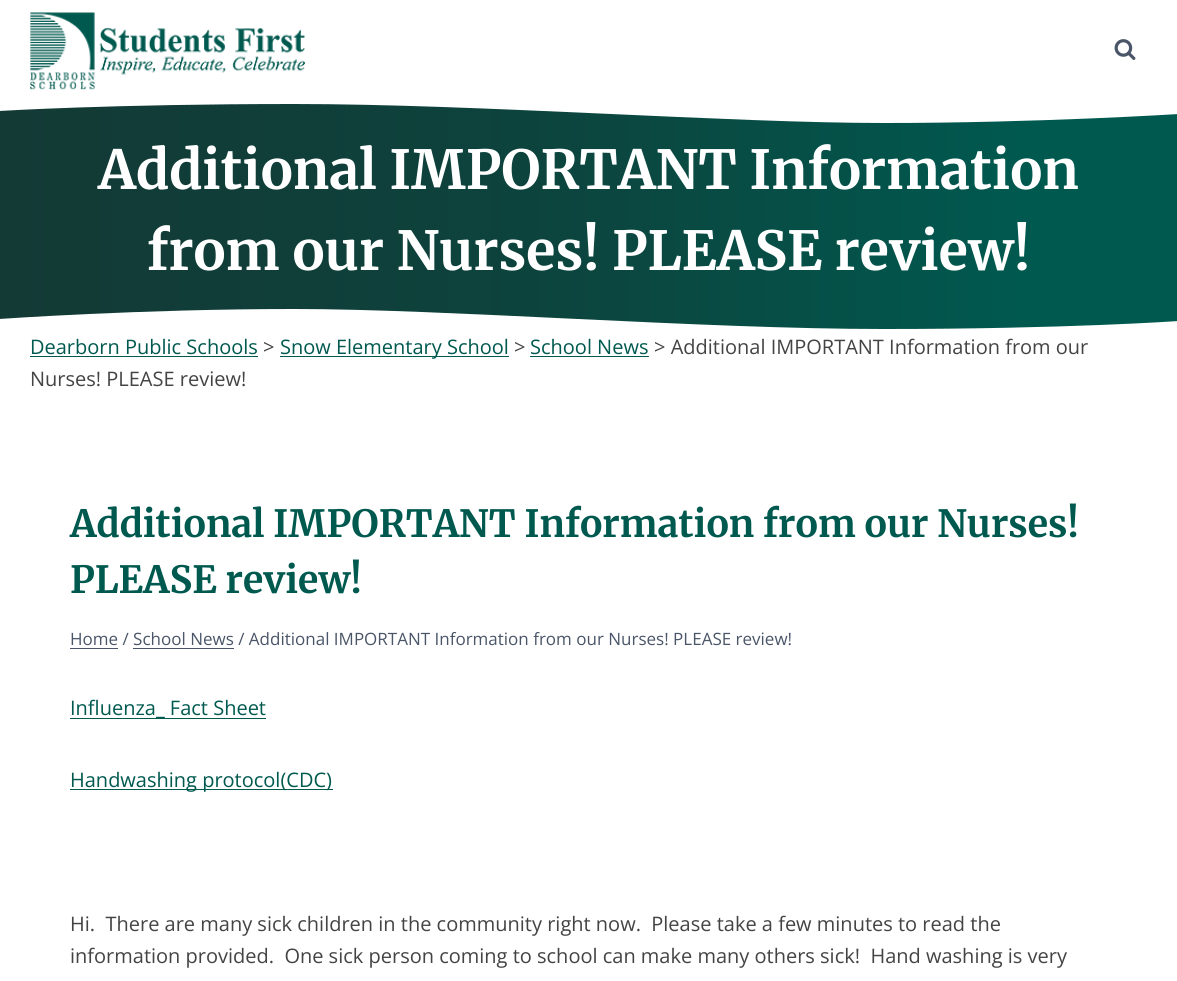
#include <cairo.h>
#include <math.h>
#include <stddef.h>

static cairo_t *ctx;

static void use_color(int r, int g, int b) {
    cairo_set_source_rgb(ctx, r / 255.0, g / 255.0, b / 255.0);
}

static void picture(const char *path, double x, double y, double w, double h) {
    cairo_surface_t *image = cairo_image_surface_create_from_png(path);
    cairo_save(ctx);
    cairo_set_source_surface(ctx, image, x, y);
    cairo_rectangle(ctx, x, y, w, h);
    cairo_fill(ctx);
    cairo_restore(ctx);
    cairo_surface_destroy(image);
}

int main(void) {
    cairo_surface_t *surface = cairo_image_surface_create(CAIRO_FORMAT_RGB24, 1177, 981);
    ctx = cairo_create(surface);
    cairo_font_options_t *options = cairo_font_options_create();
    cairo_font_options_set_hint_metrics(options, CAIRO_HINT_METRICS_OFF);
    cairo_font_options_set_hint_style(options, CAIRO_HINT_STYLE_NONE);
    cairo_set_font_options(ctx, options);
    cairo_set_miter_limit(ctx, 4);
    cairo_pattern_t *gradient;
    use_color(255, 255, 255);
    cairo_paint(ctx);
    picture("img1.png", 30, 12, 275, 78);
    picture("img2.png", 1114, 39, 22, 21);
    gradient = cairo_pattern_create_linear(0, 217, 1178, 217);
    cairo_pattern_add_color_stop_rgba(gradient, 0, 0.075, 0.227, 0.208, 1);
    cairo_pattern_add_color_stop_rgba(gradient, 0.18, 0.067, 0.239, 0.22, 1);
    cairo_pattern_add_color_stop_rgba(gradient, 0.45, 0.051, 0.263, 0.239, 1);
    cairo_pattern_add_color_stop_rgba(gradient, 0.87, 0, 0.349, 0.31, 1);
    cairo_set_source(ctx, gradient);
    cairo_pattern_destroy(gradient);
    cairo_rectangle(ctx, 0, 104, 1177, 225);
    cairo_fill(ctx);
    use_color(255, 255, 255);
    cairo_new_path(ctx);
    cairo_move_to(ctx, 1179, 114);
    cairo_curve_to(ctx, 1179, 114, 1037, 123, 884, 123);
    cairo_curve_to(ctx, 730, 123, 477, 104, 294, 104);
    cairo_curve_to(ctx, 111, 104, -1, 111, -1, 111);
    cairo_line_to(ctx, -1, 99);
    cairo_line_to(ctx, 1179, 99);
    cairo_close_path(ctx);
    cairo_fill(ctx);
    cairo_select_font_face(ctx, "Merriweather Light", CAIRO_FONT_SLANT_NORMAL, CAIRO_FONT_WEIGHT_NORMAL);
    cairo_set_font_size(ctx, 53.75);
    cairo_move_to(ctx, 98, 189);
    cairo_show_text(ctx, "Additional IMPORTANT Information");
    cairo_move_to(ctx, 147, 270);
    cairo_show_text(ctx, "from our Nurses! PLEASE review!");
    cairo_new_path(ctx);
    cairo_move_to(ctx, -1, 319);
    cairo_curve_to(ctx, -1, 319, 140, 309, 294, 309);
    cairo_curve_to(ctx, 447, 309, 701, 329, 884, 329);
    cairo_curve_to(ctx, 1066, 329, 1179, 321, 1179, 321);
    cairo_line_to(ctx, 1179, 334);
    cairo_line_to(ctx, -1, 334);
    cairo_close_path(ctx);
    cairo_fill(ctx);
    cairo_select_font_face(ctx, "Open Sans", CAIRO_FONT_SLANT_NORMAL, CAIRO_FONT_WEIGHT_NORMAL);
    cairo_set_font_size(ctx, 20);
    use_color(0, 89, 79);
    cairo_move_to(ctx, 30, 354);
    cairo_show_text(ctx, "Dearborn Public Schools");
    cairo_rectangle(ctx, 30, 356, 228, 1);
    cairo_fill(ctx);
    use_color(68, 68, 68);
    cairo_move_to(ctx, 263, 354);
    cairo_show_text(ctx, ">");
    use_color(0, 89, 79);
    cairo_rectangle(ctx, 280, 356, 229, 1);
    cairo_fill(ctx);
    cairo_move_to(ctx, 280, 354);
    cairo_show_text(ctx, "Snow Elementary School");
    use_color(68, 68, 68);
    cairo_move_to(ctx, 514, 354);
    cairo_show_text(ctx, ">");
    use_color(0, 89, 79);
    cairo_move_to(ctx, 530, 354);
    cairo_show_text(ctx, "School News");
    cairo_rectangle(ctx, 530, 356, 119, 1);
    cairo_fill(ctx);
    use_color(68, 68, 68);
    cairo_move_to(ctx, 654, 354);
    cairo_show_text(ctx, "> Additional IMPORTANT Information from our");
    cairo_move_to(ctx, 30, 386);
    cairo_show_text(ctx, "Nurses! PLEASE review!");
    cairo_select_font_face(ctx, "Merriweather Light", CAIRO_FONT_SLANT_NORMAL, CAIRO_FONT_WEIGHT_NORMAL);
    cairo_set_font_size(ctx, 37.5);
    use_color(0, 89, 79);
    cairo_move_to(ctx, 70, 537);
    cairo_show_text(ctx, "Additional IMPORTANT Information from our Nurses!");
    cairo_move_to(ctx, 70, 593);
    cairo_show_text(ctx, "PLEASE review!");
    cairo_select_font_face(ctx, "Open Sans", CAIRO_FONT_SLANT_NORMAL, CAIRO_FONT_WEIGHT_NORMAL);
    cairo_set_font_size(ctx, 17);
    use_color(74, 85, 104);
    cairo_move_to(ctx, 70, 645);
    cairo_show_text(ctx, "Home / School News / Additional IMPORTANT Information from our Nurses! PLEASE review!");
    cairo_rectangle(ctx, 70, 648, 48, 1);
    cairo_fill(ctx);
    cairo_rectangle(ctx, 133, 648, 101, 1);
    cairo_fill(ctx);
    cairo_set_font_size(ctx, 20);
    use_color(0, 89, 79);
    cairo_move_to(ctx, 70, 715);
    cairo_show_text(ctx, "Influenza_ Fact Sheet");
    cairo_rectangle(ctx, 70, 718, 196, 1);
    cairo_fill(ctx);
    cairo_rectangle(ctx, 70, 789, 263, 1);
    cairo_fill(ctx);
    cairo_move_to(ctx, 70, 787);
    cairo_show_text(ctx, "Handwashing protocol(CDC)");
    use_color(68, 68, 68);
    cairo_move_to(ctx, 70, 931);
    cairo_show_text(ctx, "Hi.  There are many sick children in the community right now.  Please take a few minutes to read the");
    cairo_move_to(ctx, 70, 963);
    cairo_show_text(ctx, "information provided.  One sick person coming to school can make many others sick!  Hand washing is very");
    cairo_surface_write_to_png(surface, "result.png");
    cairo_font_options_destroy(options);
    cairo_destroy(ctx);
    cairo_surface_destroy(surface);
    return 0;
}
